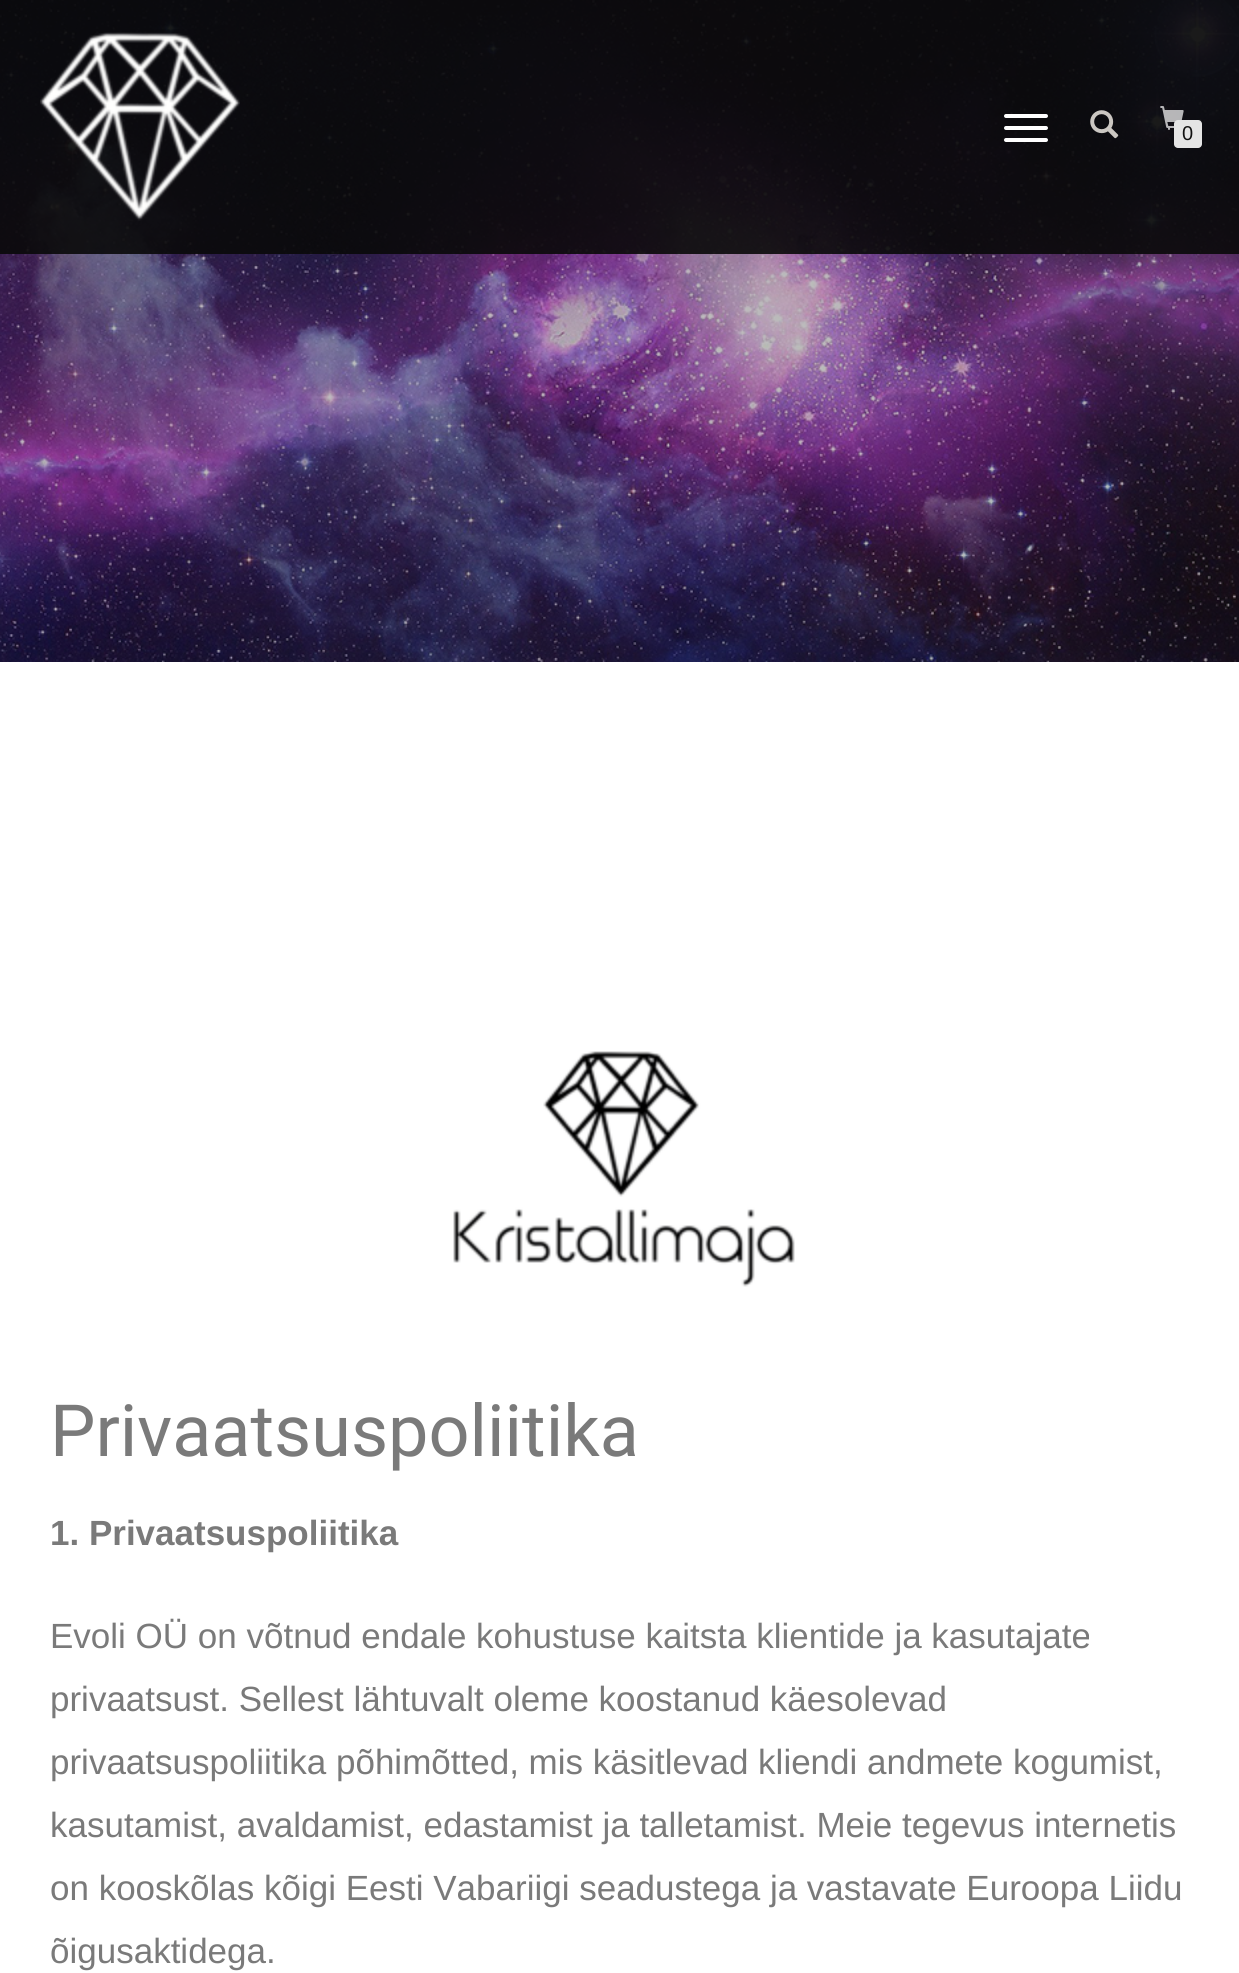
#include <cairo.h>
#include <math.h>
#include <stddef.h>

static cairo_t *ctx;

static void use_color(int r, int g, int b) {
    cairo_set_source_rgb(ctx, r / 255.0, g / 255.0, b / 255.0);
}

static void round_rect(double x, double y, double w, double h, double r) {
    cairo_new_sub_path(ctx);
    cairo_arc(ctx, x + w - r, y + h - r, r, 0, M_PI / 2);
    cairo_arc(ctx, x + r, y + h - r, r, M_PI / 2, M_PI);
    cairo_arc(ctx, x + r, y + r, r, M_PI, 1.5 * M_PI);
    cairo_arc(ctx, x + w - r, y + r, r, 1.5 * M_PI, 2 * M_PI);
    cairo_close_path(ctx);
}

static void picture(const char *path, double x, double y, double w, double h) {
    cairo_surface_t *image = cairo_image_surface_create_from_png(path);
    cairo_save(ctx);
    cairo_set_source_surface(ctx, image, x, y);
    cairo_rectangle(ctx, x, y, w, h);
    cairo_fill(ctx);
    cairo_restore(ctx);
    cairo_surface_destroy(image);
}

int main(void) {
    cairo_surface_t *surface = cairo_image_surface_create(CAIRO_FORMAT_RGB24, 1239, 1973);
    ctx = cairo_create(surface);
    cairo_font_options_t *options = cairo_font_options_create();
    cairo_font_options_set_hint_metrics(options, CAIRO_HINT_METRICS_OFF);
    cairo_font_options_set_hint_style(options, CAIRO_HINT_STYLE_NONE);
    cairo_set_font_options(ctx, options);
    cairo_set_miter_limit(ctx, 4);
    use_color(255, 255, 255);
    cairo_paint(ctx);
    picture("img4.png", 0, 0, 1239, 662);
    cairo_set_source_rgba(ctx, 0.039, 0.039, 0.039, 0.9);
    cairo_rectangle(ctx, 0, 0, 1239, 254);
    cairo_fill(ctx);
    picture("img1.png", 40, 32, 200, 189);
    use_color(255, 255, 255);
    round_rect(1004, 114, 44, 4, 2);
    cairo_fill(ctx);
    round_rect(1004, 126, 44, 4, 2);
    cairo_fill(ctx);
    round_rect(1004, 138, 44, 4, 2);
    cairo_fill(ctx);
    picture("img2.png", 1090, 110, 29, 29);
    picture("img3.png", 1160, 106, 24, 24);
    use_color(229, 229, 229);
    round_rect(1174, 120, 28, 28, 4);
    cairo_fill(ctx);
    cairo_select_font_face(ctx, "Liberation Sans", CAIRO_FONT_SLANT_NORMAL, CAIRO_FONT_WEIGHT_NORMAL);
    cairo_set_font_size(ctx, 20);
    use_color(17, 17, 17);
    cairo_move_to(ctx, 1182, 140);
    cairo_show_text(ctx, "0");
    picture("img5.png", 453, 1051, 342, 236);
    cairo_select_font_face(ctx, "Roboto", CAIRO_FONT_SLANT_NORMAL, CAIRO_FONT_WEIGHT_NORMAL);
    cairo_set_font_size(ctx, 72);
    use_color(122, 122, 122);
    cairo_move_to(ctx, 50, 1456);
    cairo_show_text(ctx, "Privaatsuspoliitika");
    cairo_select_font_face(ctx, "Liberation Sans", CAIRO_FONT_SLANT_NORMAL, CAIRO_FONT_WEIGHT_BOLD);
    cairo_set_font_size(ctx, 35);
    cairo_move_to(ctx, 50, 1545);
    cairo_show_text(ctx, "1. Privaatsuspoliitika");
    cairo_select_font_face(ctx, "Liberation Sans", CAIRO_FONT_SLANT_NORMAL, CAIRO_FONT_WEIGHT_NORMAL);
    cairo_move_to(ctx, 50, 1648);
    cairo_show_text(ctx, "Evoli OÜ on võtnud endale kohustuse kaitsta klientide ja kasutajate");
    cairo_move_to(ctx, 50, 1711);
    cairo_show_text(ctx, "privaatsust. Sellest lähtuvalt oleme koostanud käesolevad");
    cairo_move_to(ctx, 50, 1774);
    cairo_show_text(ctx, "privaatsuspoliitika põhimõtted, mis käsitlevad kliendi andmete kogumist,");
    cairo_move_to(ctx, 50, 1837);
    cairo_show_text(ctx, "kasutamist, avaldamist, edastamist ja talletamist. Meie tegevus internetis");
    cairo_move_to(ctx, 50, 1900);
    cairo_show_text(ctx, "on kooskõlas kõigi Eesti Vabariigi seadustega ja vastavate Euroopa Liidu");
    cairo_move_to(ctx, 50, 1963);
    cairo_show_text(ctx, "õigusaktidega.");
    cairo_surface_write_to_png(surface, "result.png");
    cairo_font_options_destroy(options);
    cairo_destroy(ctx);
    cairo_surface_destroy(surface);
    return 0;
}
